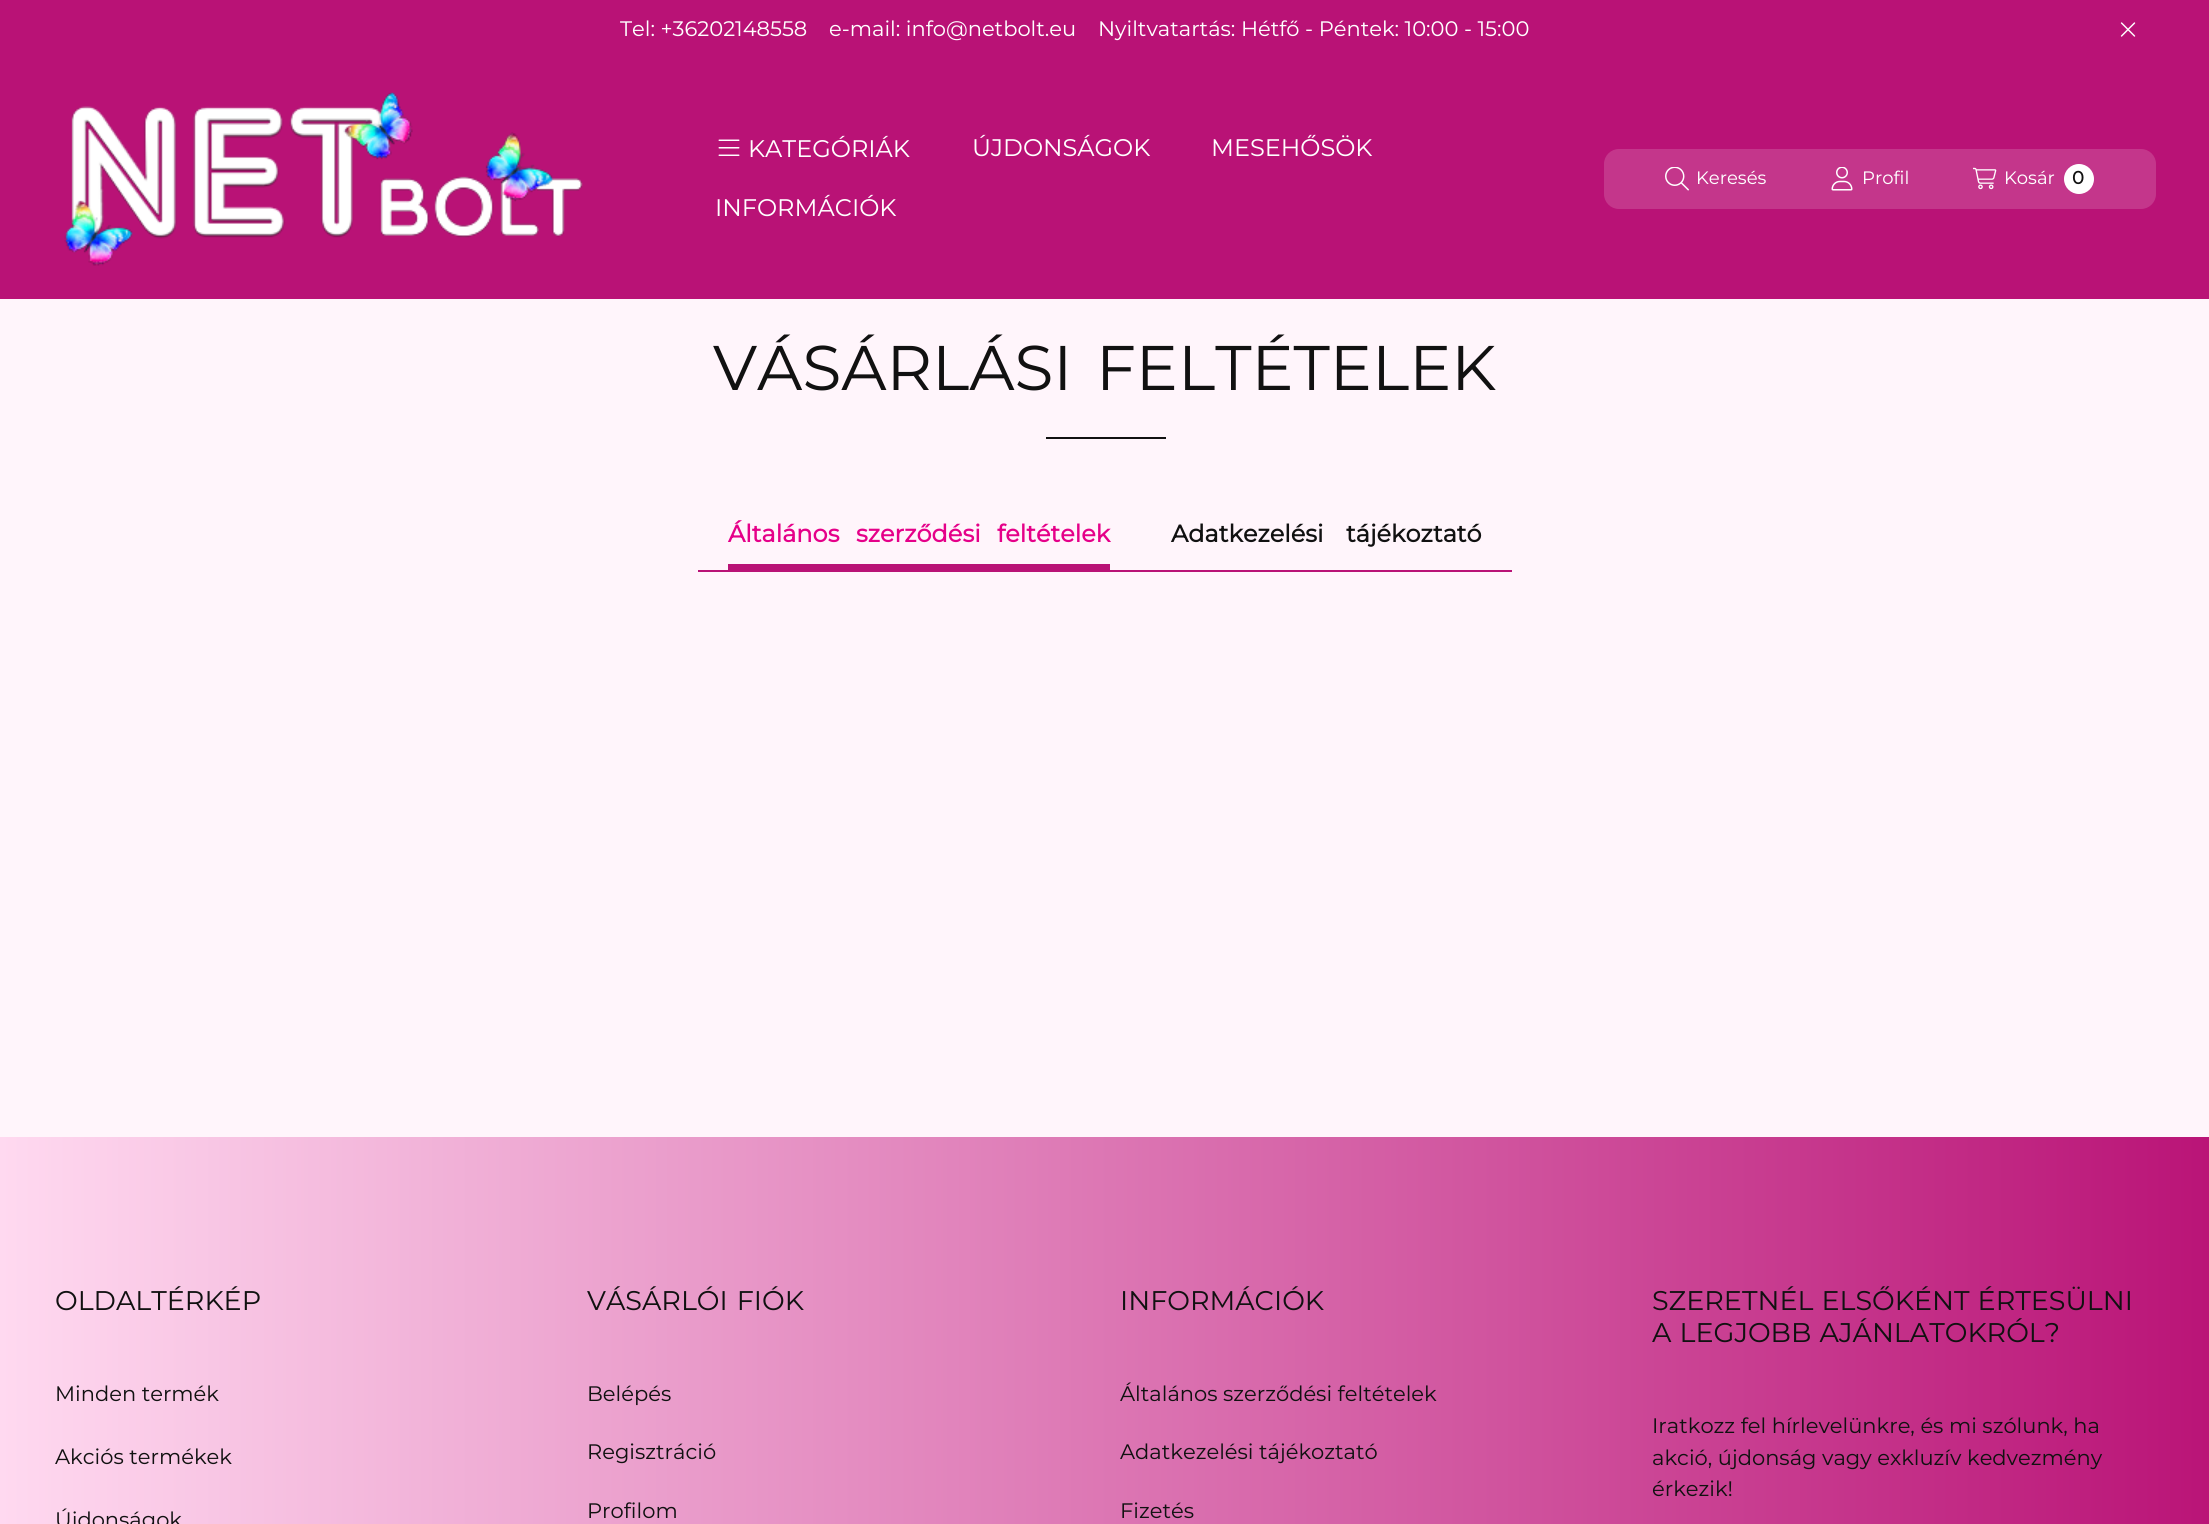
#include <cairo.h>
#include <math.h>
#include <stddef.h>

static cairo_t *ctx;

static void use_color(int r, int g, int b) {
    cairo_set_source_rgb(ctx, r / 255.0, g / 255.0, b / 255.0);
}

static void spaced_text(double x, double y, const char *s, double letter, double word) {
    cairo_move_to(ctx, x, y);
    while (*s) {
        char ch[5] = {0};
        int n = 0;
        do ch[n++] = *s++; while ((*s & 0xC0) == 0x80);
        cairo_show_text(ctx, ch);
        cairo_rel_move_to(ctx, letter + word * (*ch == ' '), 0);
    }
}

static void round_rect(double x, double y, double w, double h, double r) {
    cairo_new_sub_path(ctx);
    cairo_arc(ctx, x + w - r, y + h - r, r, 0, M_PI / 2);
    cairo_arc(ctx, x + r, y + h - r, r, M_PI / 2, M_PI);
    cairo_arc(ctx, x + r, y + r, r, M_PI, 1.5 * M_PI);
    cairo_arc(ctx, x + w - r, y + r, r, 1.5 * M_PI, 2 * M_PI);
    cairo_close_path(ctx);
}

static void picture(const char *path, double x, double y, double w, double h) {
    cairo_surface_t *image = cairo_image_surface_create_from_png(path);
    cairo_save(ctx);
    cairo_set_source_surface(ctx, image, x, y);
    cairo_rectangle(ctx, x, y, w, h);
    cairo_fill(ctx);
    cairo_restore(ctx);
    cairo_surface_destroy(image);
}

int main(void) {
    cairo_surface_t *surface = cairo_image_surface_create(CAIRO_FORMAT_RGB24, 2209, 1524);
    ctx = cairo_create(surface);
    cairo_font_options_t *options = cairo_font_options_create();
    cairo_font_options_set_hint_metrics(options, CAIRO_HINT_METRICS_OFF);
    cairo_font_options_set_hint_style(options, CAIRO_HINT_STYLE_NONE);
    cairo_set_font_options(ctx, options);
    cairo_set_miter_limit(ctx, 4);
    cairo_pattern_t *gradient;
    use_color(255, 245, 251);
    cairo_paint(ctx);
    use_color(185, 18, 118);
    cairo_rectangle(ctx, 0, 0, 2209, 299);
    cairo_fill(ctx);
    cairo_select_font_face(ctx, "Montserrat", CAIRO_FONT_SLANT_NORMAL, CAIRO_FONT_WEIGHT_NORMAL);
    cairo_set_font_size(ctx, 21);
    use_color(255, 255, 255);
    cairo_move_to(ctx, 620, 36);
    cairo_show_text(ctx, "Tel: +36202148558");
    cairo_move_to(ctx, 829, 36);
    cairo_show_text(ctx, "e-mail: info@netbolt.eu");
    cairo_move_to(ctx, 1098, 36);
    cairo_show_text(ctx, "Nyiltvatartás: Hétfő - Péntek: 10:00 - 15:00");
    picture("img1.png", 2120, 22, 16, 15);
    picture("img2.png", 64, 92, 519, 174);
    picture("img3.png", 718, 139, 22, 17);
    cairo_set_font_size(ctx, 24);
    cairo_move_to(ctx, 748, 157);
    cairo_show_text(ctx, "KATEGÓRIÁK");
    cairo_move_to(ctx, 972, 156);
    cairo_show_text(ctx, "ÚJDONSÁGOK");
    cairo_move_to(ctx, 1211, 156);
    cairo_show_text(ctx, "MESEHŐSÖK");
    cairo_move_to(ctx, 715, 216);
    cairo_show_text(ctx, "INFORMÁCIÓK");
    use_color(196, 54, 139);
    round_rect(1604, 149, 552, 60, 15);
    cairo_fill(ctx);
    picture("img4.png", 1665, 167, 24, 24);
    cairo_set_font_size(ctx, 18);
    use_color(255, 255, 255);
    cairo_move_to(ctx, 1696, 184);
    cairo_show_text(ctx, "Keresés");
    picture("img5.png", 1831, 167, 22, 24);
    cairo_move_to(ctx, 1862, 184);
    cairo_show_text(ctx, "Profil");
    picture("img6.png", 1973, 167, 24, 23);
    cairo_move_to(ctx, 2004, 184);
    cairo_show_text(ctx, "Kosár");
    cairo_new_path(ctx);
    cairo_arc(ctx, 2079, 179, 15, 0, 2 * M_PI);
    cairo_fill(ctx);
    cairo_select_font_face(ctx, "Montserrat", CAIRO_FONT_SLANT_NORMAL, CAIRO_FONT_WEIGHT_BOLD);
    use_color(17, 17, 17);
    cairo_move_to(ctx, 2072, 184);
    cairo_show_text(ctx, "0");
    cairo_select_font_face(ctx, "Montserrat", CAIRO_FONT_SLANT_NORMAL, CAIRO_FONT_WEIGHT_NORMAL);
    cairo_set_font_size(ctx, 63);
    spaced_text(713, 390, "VÁSÁRLÁSI FELTÉTELEK", 0, 7);
    cairo_rectangle(ctx, 1046, 437, 120, 2);
    cairo_fill(ctx);
    use_color(185, 18, 118);
    cairo_rectangle(ctx, 698, 570, 814, 2);
    cairo_fill(ctx);
    cairo_rectangle(ctx, 728, 564, 382, 6);
    cairo_fill(ctx);
    cairo_select_font_face(ctx, "Montserrat", CAIRO_FONT_SLANT_NORMAL, CAIRO_FONT_WEIGHT_BOLD);
    cairo_set_font_size(ctx, 24);
    use_color(229, 0, 137);
    cairo_move_to(ctx, 728, 542);
    cairo_show_text(ctx, "Általános");
    cairo_move_to(ctx, 856, 542);
    cairo_show_text(ctx, "szerződési");
    cairo_move_to(ctx, 997, 542);
    cairo_show_text(ctx, "feltételek");
    use_color(17, 17, 17);
    cairo_move_to(ctx, 1171, 542);
    cairo_show_text(ctx, "Adatkezelési");
    cairo_move_to(ctx, 1346, 542);
    cairo_show_text(ctx, "tájékoztató");
    gradient = cairo_pattern_create_linear(0, 1481, 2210, 1481);
    cairo_pattern_add_color_stop_rgba(gradient, 0, 1, 0.851, 0.941, 1);
    cairo_pattern_add_color_stop_rgba(gradient, 1, 0.729, 0.078, 0.467, 1);
    cairo_set_source(ctx, gradient);
    cairo_pattern_destroy(gradient);
    cairo_rectangle(ctx, 0, 1137, 2209, 387);
    cairo_fill(ctx);
    cairo_select_font_face(ctx, "Montserrat", CAIRO_FONT_SLANT_NORMAL, CAIRO_FONT_WEIGHT_NORMAL);
    cairo_set_font_size(ctx, 27);
    use_color(17, 17, 17);
    cairo_move_to(ctx, 55, 1310);
    cairo_show_text(ctx, "OLDALTÉRKÉP");
    cairo_set_font_size(ctx, 21);
    cairo_move_to(ctx, 55, 1401);
    cairo_show_text(ctx, "Minden termék");
    cairo_move_to(ctx, 55, 1464);
    cairo_show_text(ctx, "Akciós termékek");
    cairo_move_to(ctx, 55, 1527);
    cairo_show_text(ctx, "Újdonságok");
    cairo_set_font_size(ctx, 27);
    spaced_text(587, 1310, "VÁSÁRLÓI FIÓK", 0, 2);
    cairo_set_font_size(ctx, 21);
    cairo_move_to(ctx, 587, 1401);
    cairo_show_text(ctx, "Belépés");
    cairo_move_to(ctx, 587, 1459);
    cairo_show_text(ctx, "Regisztráció");
    cairo_move_to(ctx, 587, 1518);
    cairo_show_text(ctx, "Profilom");
    cairo_set_font_size(ctx, 27);
    cairo_move_to(ctx, 1120, 1310);
    cairo_show_text(ctx, "INFORMÁCIÓK");
    cairo_set_font_size(ctx, 21);
    cairo_move_to(ctx, 1120, 1401);
    cairo_show_text(ctx, "Általános szerződési feltételek");
    cairo_move_to(ctx, 1120, 1459);
    cairo_show_text(ctx, "Adatkezelési tájékoztató");
    cairo_move_to(ctx, 1120, 1518);
    cairo_show_text(ctx, "Fizetés");
    cairo_set_font_size(ctx, 27);
    spaced_text(1652, 1310, "SZERETNÉL ELSŐKÉNT ÉRTESÜLNI", 0, 1);
    spaced_text(1652, 1342, "A LEGJOBB AJÁNLATOKRÓL?", 0, 1);
    cairo_set_font_size(ctx, 21);
    cairo_move_to(ctx, 1652, 1433);
    cairo_show_text(ctx, "Iratkozz fel hírlevelünkre, és mi szólunk, ha");
    cairo_move_to(ctx, 1652, 1465);
    cairo_show_text(ctx, "akció, újdonság vagy exkluzív kedvezmény");
    cairo_move_to(ctx, 1652, 1496);
    cairo_show_text(ctx, "érkezik!");
    cairo_surface_write_to_png(surface, "result.png");
    cairo_font_options_destroy(options);
    cairo_destroy(ctx);
    cairo_surface_destroy(surface);
    return 0;
}
